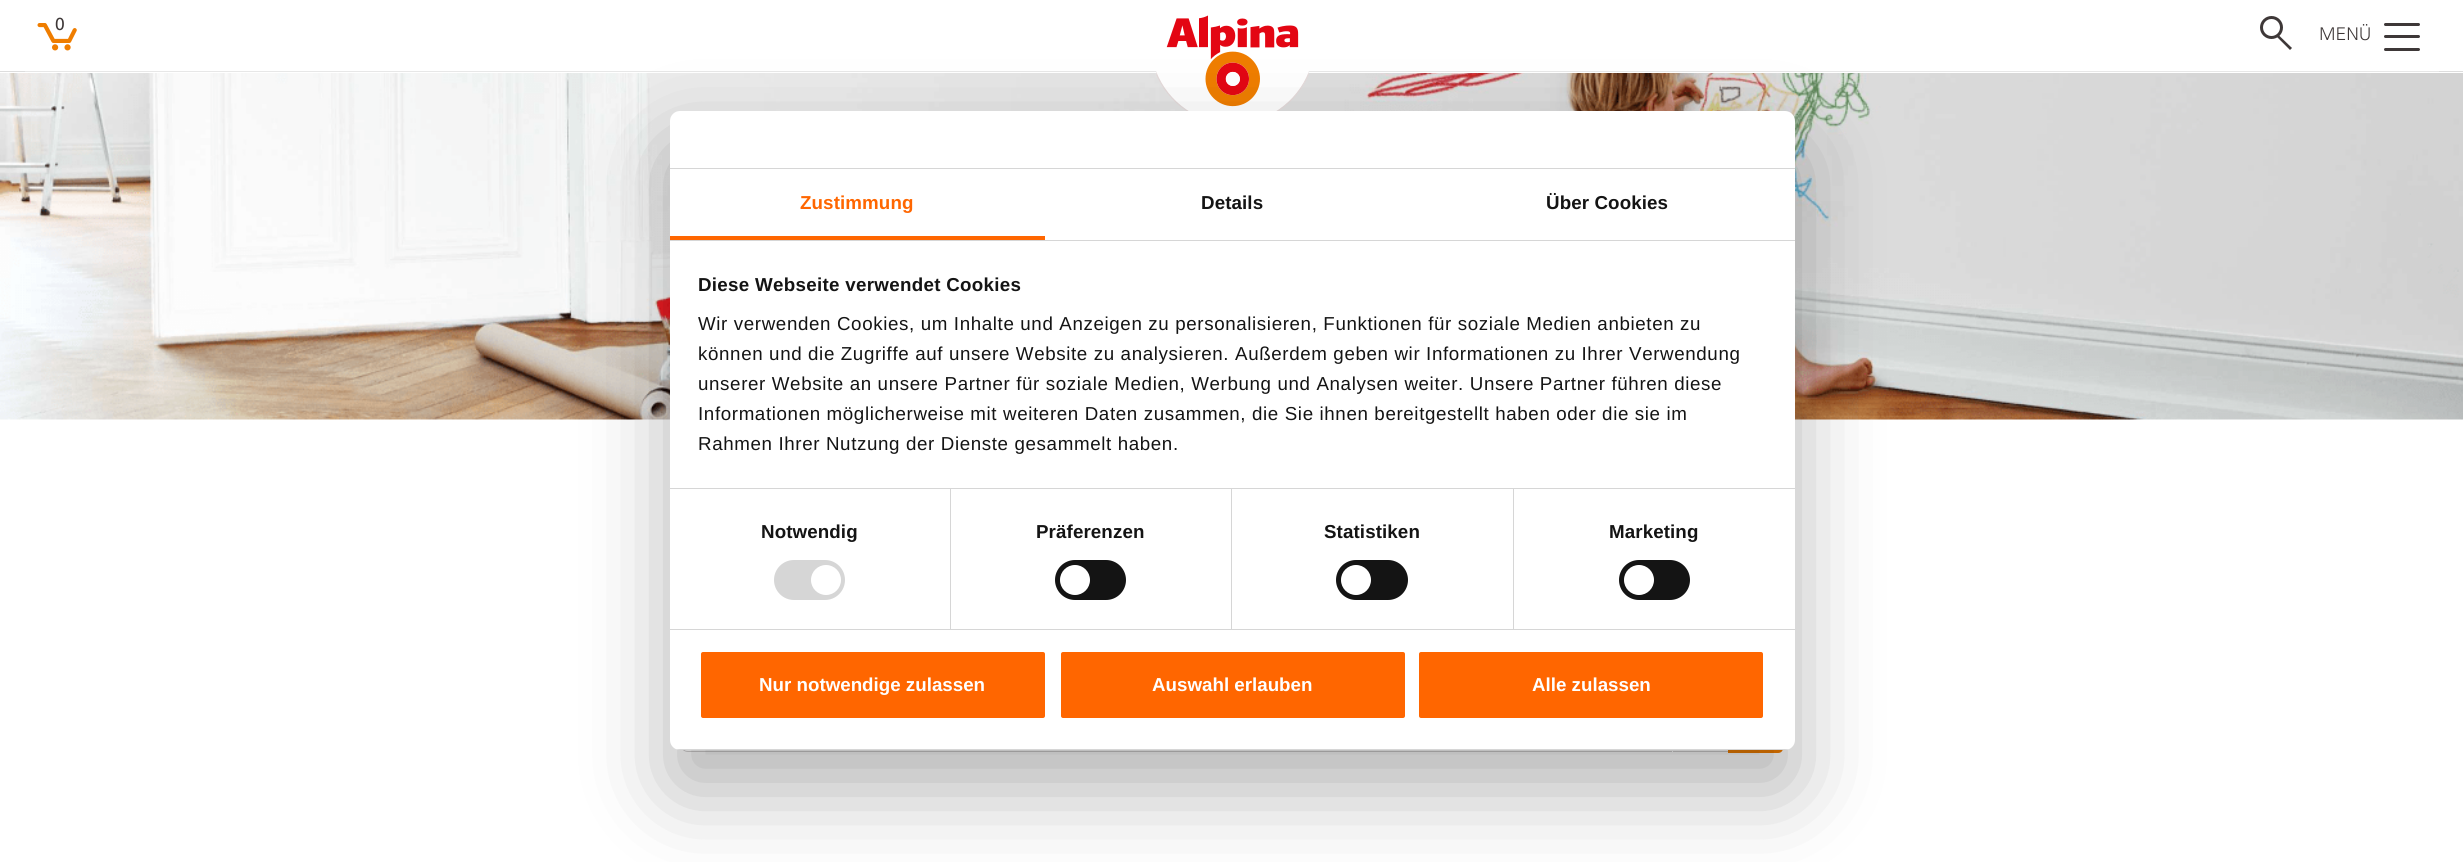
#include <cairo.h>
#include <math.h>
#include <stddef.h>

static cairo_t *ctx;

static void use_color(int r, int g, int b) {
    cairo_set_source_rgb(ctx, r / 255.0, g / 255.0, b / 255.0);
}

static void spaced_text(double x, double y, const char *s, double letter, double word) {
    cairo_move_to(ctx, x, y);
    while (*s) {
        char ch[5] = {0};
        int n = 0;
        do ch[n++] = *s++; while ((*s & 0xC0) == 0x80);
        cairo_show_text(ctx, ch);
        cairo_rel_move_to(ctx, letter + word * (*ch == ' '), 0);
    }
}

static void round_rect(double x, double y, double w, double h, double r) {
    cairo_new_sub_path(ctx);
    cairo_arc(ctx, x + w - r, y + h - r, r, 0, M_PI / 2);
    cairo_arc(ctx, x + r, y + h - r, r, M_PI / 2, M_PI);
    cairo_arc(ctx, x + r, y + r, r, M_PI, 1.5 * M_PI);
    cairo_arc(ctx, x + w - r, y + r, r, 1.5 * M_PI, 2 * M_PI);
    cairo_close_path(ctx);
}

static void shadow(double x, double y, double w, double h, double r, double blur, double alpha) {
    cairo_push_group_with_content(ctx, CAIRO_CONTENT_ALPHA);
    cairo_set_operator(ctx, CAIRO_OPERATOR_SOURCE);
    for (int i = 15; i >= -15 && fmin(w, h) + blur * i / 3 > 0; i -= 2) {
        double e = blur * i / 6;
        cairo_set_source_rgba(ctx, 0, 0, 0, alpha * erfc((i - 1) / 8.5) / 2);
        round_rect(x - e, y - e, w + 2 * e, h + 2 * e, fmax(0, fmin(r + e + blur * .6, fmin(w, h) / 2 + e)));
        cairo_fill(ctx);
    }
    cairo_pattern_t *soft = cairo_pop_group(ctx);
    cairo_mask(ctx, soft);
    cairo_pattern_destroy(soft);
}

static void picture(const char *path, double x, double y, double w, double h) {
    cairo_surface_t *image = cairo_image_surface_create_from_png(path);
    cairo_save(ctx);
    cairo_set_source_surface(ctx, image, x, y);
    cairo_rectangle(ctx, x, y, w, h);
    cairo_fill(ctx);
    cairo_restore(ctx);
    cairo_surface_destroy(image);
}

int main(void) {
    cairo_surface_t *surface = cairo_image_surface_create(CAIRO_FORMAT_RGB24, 2463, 862);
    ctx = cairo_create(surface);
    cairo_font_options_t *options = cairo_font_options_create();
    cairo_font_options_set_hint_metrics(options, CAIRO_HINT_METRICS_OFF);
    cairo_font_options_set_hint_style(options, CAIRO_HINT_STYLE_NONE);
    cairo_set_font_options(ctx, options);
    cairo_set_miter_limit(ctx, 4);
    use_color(255, 255, 255);
    cairo_paint(ctx);
    use_color(221, 221, 221);
    cairo_rectangle(ctx, 0, 71, 2463, 1);
    cairo_fill(ctx);
    use_color(255, 255, 255);
    cairo_rectangle(ctx, 25, 71, 2414, 1);
    cairo_fill(ctx);
    use_color(231, 231, 231);
    cairo_rectangle(ctx, 25, 71, 2414, 1);
    cairo_fill(ctx);
    picture("img3.png", 0, 73, 2463, 347);
    picture("img1.png", 1156, 15, 153, 96);
    cairo_select_font_face(ctx, "Univers", CAIRO_FONT_SLANT_NORMAL, CAIRO_FONT_WEIGHT_NORMAL);
    cairo_set_font_size(ctx, 17.5);
    use_color(62, 56, 56);
    cairo_move_to(ctx, 55, 30);
    cairo_show_text(ctx, "0");
    picture("img2.png", 37, 23, 40, 28);
    cairo_arc(ctx, 2271.5, 27.5, 10, 0, 2 * M_PI);
    cairo_set_line_width(ctx, 3);
    cairo_stroke(ctx);
    cairo_new_path(ctx);
    cairo_move_to(ctx, 2278.5, 35);
    cairo_line_to(ctx, 2292, 48);
    cairo_line_to(ctx, 2290, 50);
    cairo_line_to(ctx, 2277, 37);
    cairo_close_path(ctx);
    cairo_fill(ctx);
    cairo_select_font_face(ctx, "Univers Light", CAIRO_FONT_SLANT_NORMAL, CAIRO_FONT_WEIGHT_NORMAL);
    cairo_move_to(ctx, 2319, 40);
    cairo_show_text(ctx, "MENÜ");
    round_rect(2384, 35, 36, 3, 1.5);
    cairo_fill(ctx);
    round_rect(2384, 23, 36, 3, 1.5);
    cairo_fill(ctx);
    round_rect(2384, 48, 36, 3, 1.5);
    cairo_fill(ctx);
    use_color(207, 205, 205);
    cairo_set_fill_rule(ctx, CAIRO_FILL_RULE_EVEN_ODD);
    cairo_new_path(ctx);
    cairo_move_to(ctx, 688, 691);
    cairo_line_to(ctx, 1672, 691);
    cairo_line_to(ctx, 1672, 752);
    cairo_line_to(ctx, 688, 752);
    cairo_curve_to(ctx, 685, 752, 682, 750, 682, 748);
    cairo_line_to(ctx, 682, 696);
    cairo_curve_to(ctx, 682, 693, 685, 691, 688, 691);
    cairo_close_path(ctx);
    cairo_move_to(ctx, 688, 692);
    cairo_line_to(ctx, 1672, 692);
    cairo_line_to(ctx, 1672, 751);
    cairo_line_to(ctx, 688, 751);
    cairo_curve_to(ctx, 685, 751, 684, 750, 684, 748);
    cairo_line_to(ctx, 684, 696);
    cairo_curve_to(ctx, 684, 694, 685, 692, 688, 692);
    cairo_close_path(ctx);
    cairo_fill(ctx);
    cairo_rectangle(ctx, 1673, 751, 55, 1);
    cairo_fill(ctx);
    use_color(239, 125, 0);
    cairo_new_path(ctx);
    cairo_move_to(ctx, 1728, 691);
    cairo_line_to(ctx, 1778, 691);
    cairo_curve_to(ctx, 1781, 691, 1783, 693, 1783, 696);
    cairo_line_to(ctx, 1783, 748);
    cairo_curve_to(ctx, 1783, 751, 1781, 753, 1778, 753);
    cairo_line_to(ctx, 1728, 753);
    cairo_close_path(ctx);
    cairo_fill(ctx);
    use_color(0, 0, 0);
    shadow(670, 151, 1125, 639, 10, 42.5, 0.3);
    use_color(255, 255, 255);
    round_rect(670, 111, 1125, 639, 10);
    cairo_fill(ctx);
    use_color(214, 214, 214);
    cairo_rectangle(ctx, 670, 168, 1125, 1);
    cairo_fill(ctx);
    cairo_rectangle(ctx, 670, 240, 1125, 1);
    cairo_fill(ctx);
    use_color(255, 102, 0);
    cairo_rectangle(ctx, 670, 236, 375, 4);
    cairo_fill(ctx);
    cairo_select_font_face(ctx, "Liberation Sans", CAIRO_FONT_SLANT_NORMAL, CAIRO_FONT_WEIGHT_BOLD);
    cairo_set_font_size(ctx, 18.75);
    spaced_text(800, 209, "Zustimmung", 0.1, 0);
    use_color(20, 20, 20);
    spaced_text(1201, 209, "Details", 0.1, 0);
    spaced_text(1546, 209, "Über Cookies", 0.1, 0);
    use_color(214, 214, 214);
    cairo_rectangle(ctx, 670, 488, 1125, 1);
    cairo_fill(ctx);
    use_color(20, 20, 20);
    spaced_text(698, 291, "Diese Webseite verwendet Cookies", 0.3, 0);
    cairo_select_font_face(ctx, "Liberation Sans", CAIRO_FONT_SLANT_NORMAL, CAIRO_FONT_WEIGHT_NORMAL);
    spaced_text(698, 330, "Wir verwenden Cookies, um Inhalte und Anzeigen zu personalisieren, Funktionen für soziale Medien anbieten zu", 0.62, 0);
    spaced_text(698, 360, "können und die Zugriffe auf unsere Website zu analysieren. Außerdem geben wir Informationen zu Ihrer Verwendung", 0.62, 0);
    spaced_text(698, 390, "unserer Website an unsere Partner für soziale Medien, Werbung und Analysen weiter. Unsere Partner führen diese", 0.62, 0);
    spaced_text(698, 420, "Informationen möglicherweise mit weiteren Daten zusammen, die Sie ihnen bereitgestellt haben oder die sie im", 0.62, 0);
    spaced_text(698, 450, "Rahmen Ihrer Nutzung der Dienste gesammelt haben.", 0.62, 0);
    use_color(214, 214, 214);
    cairo_rectangle(ctx, 670, 629, 1125, 1);
    cairo_fill(ctx);
    cairo_rectangle(ctx, 950, 489, 1, 140);
    cairo_fill(ctx);
    cairo_select_font_face(ctx, "Liberation Sans", CAIRO_FONT_SLANT_NORMAL, CAIRO_FONT_WEIGHT_BOLD);
    use_color(20, 20, 20);
    spaced_text(761, 538, "Notwendig", 0.1, 0);
    use_color(214, 214, 214);
    round_rect(774, 560, 71, 40, 20);
    cairo_fill(ctx);
    use_color(255, 255, 255);
    cairo_arc(ctx, 826, 580, 15, 0, 2 * M_PI);
    cairo_fill(ctx);
    use_color(214, 214, 214);
    cairo_rectangle(ctx, 1231, 489, 1, 140);
    cairo_fill(ctx);
    use_color(20, 20, 20);
    spaced_text(1036, 538, "Präferenzen", 0.1, 0);
    round_rect(1055, 560, 71, 40, 20);
    cairo_fill(ctx);
    use_color(255, 255, 255);
    cairo_arc(ctx, 1075, 580, 15, 0, 2 * M_PI);
    cairo_fill(ctx);
    use_color(214, 214, 214);
    cairo_rectangle(ctx, 1513, 489, 1, 140);
    cairo_fill(ctx);
    use_color(20, 20, 20);
    spaced_text(1324, 538, "Statistiken", 0.1, 0);
    round_rect(1336, 560, 72, 40, 20);
    cairo_fill(ctx);
    use_color(255, 255, 255);
    cairo_arc(ctx, 1356, 580, 15, 0, 2 * M_PI);
    cairo_fill(ctx);
    use_color(20, 20, 20);
    spaced_text(1609, 538, "Marketing", 0.1, 0);
    round_rect(1619, 560, 71, 40, 20);
    cairo_fill(ctx);
    use_color(255, 255, 255);
    cairo_arc(ctx, 1639, 580, 15, 0, 2 * M_PI);
    cairo_fill(ctx);
    cairo_save(ctx);
    cairo_set_fill_rule(ctx, CAIRO_FILL_RULE_WINDING);
    round_rect(670, 111, 1125, 639, 10);
    cairo_clip(ctx);
    use_color(214, 214, 214);
    cairo_rectangle(ctx, 670, 749, 1125, 1);
    cairo_fill(ctx);
    cairo_restore(ctx);
    use_color(255, 102, 0);
    round_rect(699.5, 650.5, 347, 69, 3.5);
    cairo_fill_preserve(ctx);
    use_color(255, 255, 255);
    cairo_stroke(ctx);
    cairo_move_to(ctx, 759, 691);
    cairo_show_text(ctx, "Nur notwendige zulassen");
    use_color(255, 102, 0);
    round_rect(1059.5, 650.5, 347, 69, 3.5);
    cairo_fill_preserve(ctx);
    use_color(255, 255, 255);
    cairo_stroke(ctx);
    cairo_move_to(ctx, 1152, 691);
    cairo_show_text(ctx, "Auswahl erlauben");
    use_color(255, 102, 0);
    round_rect(1417.5, 650.5, 347, 69, 3.5);
    cairo_fill_preserve(ctx);
    use_color(255, 255, 255);
    cairo_stroke(ctx);
    cairo_move_to(ctx, 1532, 691);
    cairo_show_text(ctx, "Alle zulassen");
    cairo_surface_write_to_png(surface, "result.png");
    cairo_font_options_destroy(options);
    cairo_destroy(ctx);
    cairo_surface_destroy(surface);
    return 0;
}
